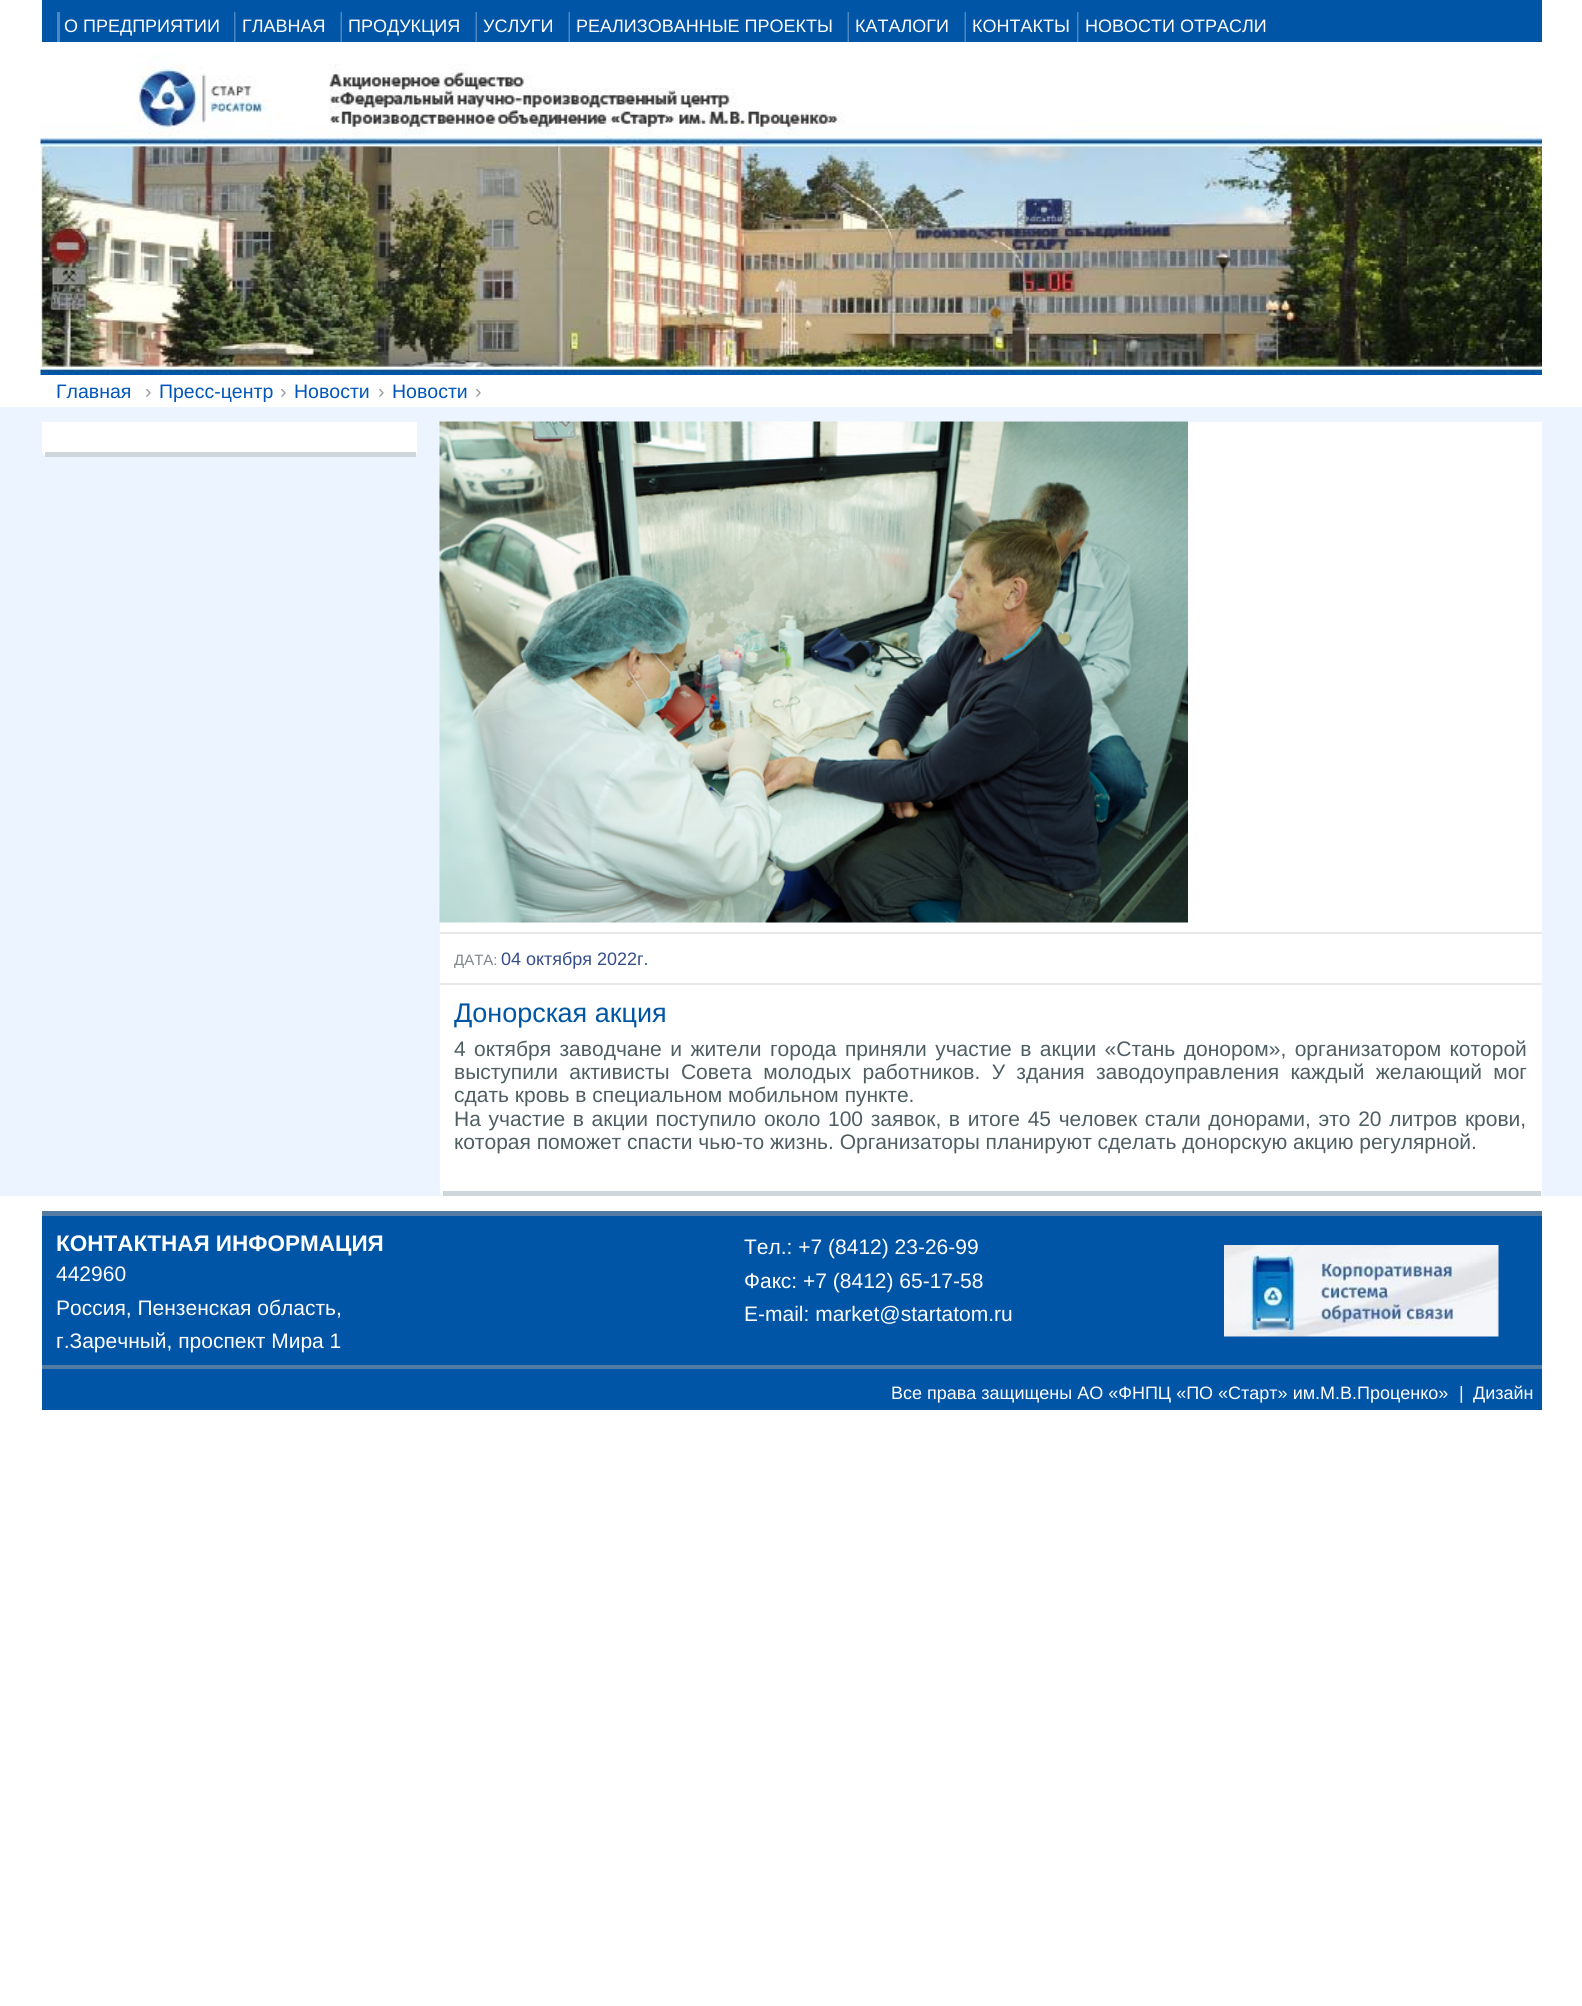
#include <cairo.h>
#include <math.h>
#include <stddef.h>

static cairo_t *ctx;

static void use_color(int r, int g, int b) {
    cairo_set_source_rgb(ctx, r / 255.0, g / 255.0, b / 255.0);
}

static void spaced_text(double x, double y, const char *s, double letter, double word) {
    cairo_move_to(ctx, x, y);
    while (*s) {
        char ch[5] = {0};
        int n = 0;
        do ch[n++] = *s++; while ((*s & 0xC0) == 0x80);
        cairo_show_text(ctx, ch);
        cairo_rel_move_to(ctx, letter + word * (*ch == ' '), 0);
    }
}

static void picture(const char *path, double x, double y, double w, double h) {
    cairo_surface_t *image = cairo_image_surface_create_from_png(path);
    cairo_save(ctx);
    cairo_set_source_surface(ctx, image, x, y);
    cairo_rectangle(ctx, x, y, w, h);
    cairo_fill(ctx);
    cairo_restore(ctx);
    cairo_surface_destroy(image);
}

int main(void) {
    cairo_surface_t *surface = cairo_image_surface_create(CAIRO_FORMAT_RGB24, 1582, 2006);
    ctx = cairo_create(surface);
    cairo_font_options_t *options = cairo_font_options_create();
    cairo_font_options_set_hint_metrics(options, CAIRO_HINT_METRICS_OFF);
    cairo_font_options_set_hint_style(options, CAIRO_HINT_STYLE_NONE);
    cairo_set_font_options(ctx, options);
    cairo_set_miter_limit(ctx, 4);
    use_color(255, 255, 255);
    cairo_paint(ctx);
    use_color(0, 85, 167);
    cairo_rectangle(ctx, 42, 0, 1500, 42);
    cairo_fill(ctx);
    use_color(77, 136, 193);
    cairo_rectangle(ctx, 57, 12, 3, 30);
    cairo_fill(ctx);
    cairo_select_font_face(ctx, "Liberation Sans", CAIRO_FONT_SLANT_NORMAL, CAIRO_FONT_WEIGHT_NORMAL);
    cairo_set_font_size(ctx, 18);
    use_color(255, 255, 255);
    cairo_move_to(ctx, 64, 32);
    cairo_show_text(ctx, "О ПРЕДПРИЯТИИ");
    picture("img1.png", 234, 12, 2, 30);
    cairo_move_to(ctx, 242, 32);
    cairo_show_text(ctx, "ГЛАВНАЯ");
    picture("img2.png", 340, 12, 2, 30);
    cairo_move_to(ctx, 348, 32);
    cairo_show_text(ctx, "ПРОДУКЦИЯ");
    picture("img2.png", 475, 12, 2, 30);
    cairo_move_to(ctx, 483, 32);
    cairo_show_text(ctx, "УСЛУГИ");
    picture("img2.png", 568, 12, 2, 30);
    cairo_move_to(ctx, 576, 32);
    cairo_show_text(ctx, "РЕАЛИЗОВАННЫЕ ПРОЕКТЫ");
    picture("img2.png", 847, 12, 2, 30);
    cairo_move_to(ctx, 855, 32);
    cairo_show_text(ctx, "КАТАЛОГИ");
    picture("img2.png", 964, 12, 2, 30);
    cairo_move_to(ctx, 972, 32);
    cairo_show_text(ctx, "КОНТАКТЫ");
    picture("img1.png", 1077, 12, 2, 30);
    cairo_move_to(ctx, 1085, 32);
    cairo_show_text(ctx, "НОВОСТИ ОТРАСЛИ");
    picture("img3.png", 40, 53, 1502, 322);
    cairo_set_font_size(ctx, 19.5);
    use_color(0, 86, 186);
    cairo_move_to(ctx, 56, 398);
    cairo_show_text(ctx, "Главная");
    use_color(154, 154, 154);
    cairo_move_to(ctx, 145, 398);
    cairo_show_text(ctx, "›");
    use_color(0, 86, 186);
    cairo_move_to(ctx, 159, 398);
    cairo_show_text(ctx, "Пресс-центр");
    use_color(154, 154, 154);
    cairo_move_to(ctx, 280, 398);
    cairo_show_text(ctx, "›");
    use_color(0, 86, 186);
    cairo_move_to(ctx, 294, 398);
    cairo_show_text(ctx, "Новости");
    use_color(154, 154, 154);
    cairo_move_to(ctx, 378, 398);
    cairo_show_text(ctx, "›");
    use_color(0, 86, 186);
    cairo_move_to(ctx, 392, 398);
    cairo_show_text(ctx, "Новости");
    use_color(154, 154, 154);
    cairo_move_to(ctx, 475, 398);
    cairo_show_text(ctx, "›");
    use_color(236, 245, 255);
    cairo_rectangle(ctx, 0, 407, 1582, 789);
    cairo_fill(ctx);
    use_color(255, 255, 255);
    cairo_new_path(ctx);
    cairo_move_to(ctx, 42, 422);
    cairo_line_to(ctx, 417, 422);
    cairo_line_to(ctx, 417, 451);
    cairo_curve_to(ctx, 417, 454, 415, 456, 412, 456);
    cairo_line_to(ctx, 47, 456);
    cairo_curve_to(ctx, 44, 456, 42, 454, 42, 451);
    cairo_close_path(ctx);
    cairo_fill(ctx);
    use_color(206, 214, 219);
    cairo_rectangle(ctx, 45, 452, 371, 5);
    cairo_fill(ctx);
    use_color(255, 255, 255);
    cairo_new_path(ctx);
    cairo_move_to(ctx, 440, 422);
    cairo_line_to(ctx, 1542, 422);
    cairo_line_to(ctx, 1542, 1191);
    cairo_curve_to(ctx, 1542, 1194, 1540, 1196, 1537, 1196);
    cairo_line_to(ctx, 445, 1196);
    cairo_curve_to(ctx, 442, 1196, 440, 1194, 440, 1191);
    cairo_close_path(ctx);
    cairo_fill(ctx);
    use_color(206, 214, 219);
    cairo_rectangle(ctx, 443, 1191, 1098, 5);
    cairo_fill(ctx);
    picture("img4.png", 439, 421, 749, 502);
    use_color(233, 233, 233);
    cairo_rectangle(ctx, 440, 932, 1102, 2);
    cairo_fill(ctx);
    cairo_rectangle(ctx, 440, 983, 1102, 2);
    cairo_fill(ctx);
    cairo_set_font_size(ctx, 15);
    use_color(128, 134, 140);
    cairo_move_to(ctx, 454, 965);
    cairo_show_text(ctx, "ДАТА:");
    cairo_set_font_size(ctx, 18);
    use_color(52, 76, 137);
    cairo_move_to(ctx, 501, 965);
    cairo_show_text(ctx, "04 октября 2022г.");
    cairo_set_font_size(ctx, 27);
    use_color(0, 86, 163);
    cairo_move_to(ctx, 454, 1022);
    cairo_show_text(ctx, "Донорская акция");
    cairo_set_font_size(ctx, 21);
    use_color(79, 94, 98);
    spaced_text(454, 1056, "4 октября заводчане и жители города приняли участие в акции «Стань донором», организатором которой", 0, 2.6);
    spaced_text(454, 1079, "выступили активисты Совета молодых работников. У здания заводоуправления каждый желающий мог", 0, 5.5);
    cairo_move_to(ctx, 454, 1102);
    cairo_show_text(ctx, "сдать кровь в специальном мобильном пункте.");
    spaced_text(454, 1126, "На участие в акции поступило около 100 заявок, в итоге 45 человек стали донорами, это 20 литров крови,", 0, 1.8);
    cairo_move_to(ctx, 454, 1149);
    cairo_show_text(ctx, "которая поможет спасти чью-то жизнь. Организаторы планируют сделать донорскую акцию регулярной.");
    use_color(0, 85, 167);
    cairo_rectangle(ctx, 42, 1216, 1500, 194);
    cairo_fill(ctx);
    use_color(82, 124, 164);
    cairo_rectangle(ctx, 42, 1211, 1500, 5);
    cairo_fill(ctx);
    cairo_select_font_face(ctx, "Liberation Sans", CAIRO_FONT_SLANT_NORMAL, CAIRO_FONT_WEIGHT_BOLD);
    cairo_set_font_size(ctx, 22.5);
    use_color(255, 255, 255);
    cairo_move_to(ctx, 56, 1251);
    cairo_show_text(ctx, "КОНТАКТНАЯ ИНФОРМАЦИЯ");
    cairo_select_font_face(ctx, "Liberation Sans", CAIRO_FONT_SLANT_NORMAL, CAIRO_FONT_WEIGHT_NORMAL);
    cairo_set_font_size(ctx, 21);
    cairo_move_to(ctx, 56, 1281);
    cairo_show_text(ctx, "442960");
    cairo_move_to(ctx, 56, 1315);
    cairo_show_text(ctx, "Россия, Пензенская область,");
    cairo_move_to(ctx, 56, 1348);
    cairo_show_text(ctx, "г.Заречный, проспект Мира 1");
    cairo_move_to(ctx, 744, 1254);
    cairo_show_text(ctx, "Тeл.: +7 (8412) 23-26-99");
    cairo_move_to(ctx, 744, 1288);
    cairo_show_text(ctx, "Факс: +7 (8412) 65-17-58");
    cairo_move_to(ctx, 744, 1321);
    cairo_show_text(ctx, "E-mail: market@startatom.ru");
    picture("img5.png", 1224, 1245, 275, 92);
    use_color(82, 124, 164);
    cairo_rectangle(ctx, 42, 1365, 1500, 4);
    cairo_fill(ctx);
    cairo_set_font_size(ctx, 18);
    use_color(255, 255, 255);
    cairo_move_to(ctx, 891, 1399);
    cairo_show_text(ctx, "Все права защищены АО «ФНПЦ «ПО «Старт» им.М.В.Проценко»");
    cairo_move_to(ctx, 1459, 1399);
    cairo_show_text(ctx, "|");
    cairo_move_to(ctx, 1473, 1399);
    cairo_show_text(ctx, "Дизайн");
    cairo_surface_write_to_png(surface, "result.png");
    cairo_font_options_destroy(options);
    cairo_destroy(ctx);
    cairo_surface_destroy(surface);
    return 0;
}
